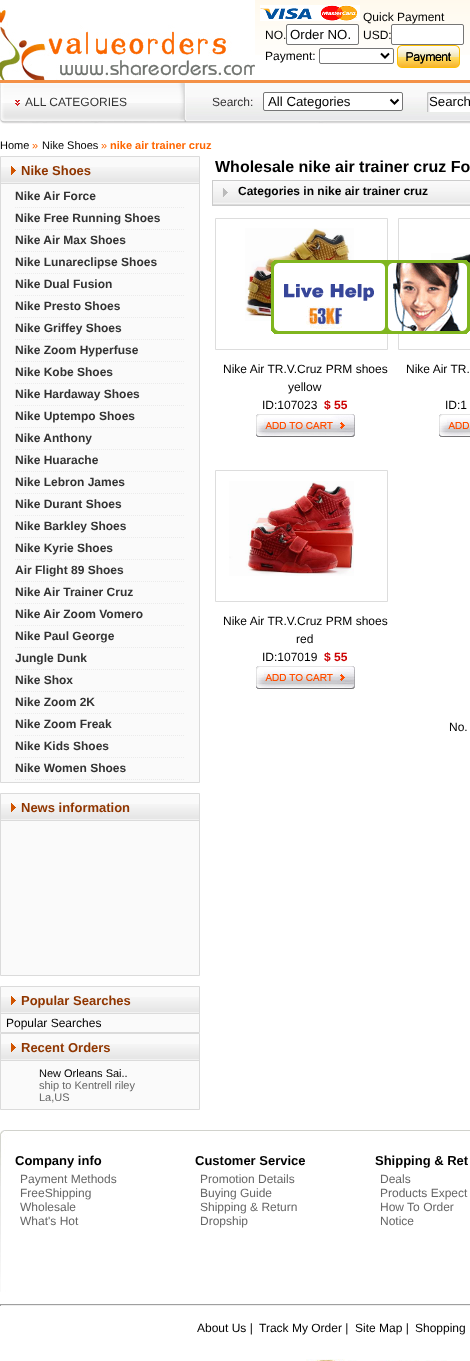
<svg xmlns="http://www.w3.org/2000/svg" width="470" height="1361">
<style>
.a{font:12px Liberation Sans;fill:#000}
.b{font:13.25px Liberation Sans;fill:#000}
.c{font:12px Liberation Sans;fill:#333}
.d{font:11px Liberation Sans;fill:#000}
.e{font:11px Liberation Sans;fill:#f60}
.f{font:bold 11px Liberation Sans;fill:#f60}
.g{font:bold 13px Liberation Sans;fill:#903600}
.h{font:bold 12px Liberation Sans;fill:#333}
.i{font:11px Liberation Sans;fill:#666}
.j{font:bold 16px Liberation Sans;fill:#000}
.k{font:bold 12px Liberation Sans;fill:#000}
.l{font:bold 12px Liberation Sans;fill:#c00}
.m{font:bold 13px Liberation Sans;fill:#000}
.n{font:12px Liberation Sans;fill:#666}
</style>
<rect width="100%" height="100%" fill="#fff"/>
<image href="1.png" x="255" y="0" width="215" height="55"/>
<image href="2.png" x="0" y="0" width="255" height="80"/>
<image href="3.png" x="260" y="5" width="100" height="16"/>
<rect fill="#fff" stroke="#767676" x="286.5" y="24.5" width="72" height="20" rx="1.5"/>
<rect fill="#fff" stroke="#767676" x="391.5" y="24.5" width="72" height="20" rx="1.5"/>
<rect fill="#fff" stroke="#767676" x="319.5" y="48.5" width="74" height="15" rx="1.5"/>
<path fill="none" stroke="#000" stroke-width="2" d="M381 53.5l4 4l4-4"/>
<image href="4.png" x="397" y="45" width="63" height="23"/>
<image href="5.png" x="0" y="80" width="470" height="44"/>
<image href="6.png" x="1" y="83" width="186" height="39"/>
<image href="7.png" x="15" y="100" width="5" height="6"/>
<rect fill="#fff" stroke="#767676" x="263.5" y="92.5" width="139" height="18" rx="1.5"/>
<path fill="none" stroke="#000" stroke-width="2" d="M390.5 99.5l4 4l4-4"/>
<image href="8.png" x="427" y="92" width="43" height="20"/>
<path fill="#fafafa" stroke="#dbdbdb" d="M0.5 156.5h199v626H0.5z"/>
<image href="9.png" x="1" y="167" width="198" height="17"/>
<image href="10.png" x="11" y="166" width="5" height="9"/>
<path fill="none" stroke="#ebebeb" stroke-dasharray="1 1" d="M15 207.5h170"/>
<path fill="none" stroke="#ebebeb" stroke-dasharray="1 1" d="M15 229.5h170"/>
<path fill="none" stroke="#ebebeb" stroke-dasharray="1 1" d="M15 251.5h170"/>
<path fill="none" stroke="#ebebeb" stroke-dasharray="1 1" d="M15 273.5h170"/>
<path fill="none" stroke="#ebebeb" stroke-dasharray="1 1" d="M15 295.5h170"/>
<path fill="none" stroke="#ebebeb" stroke-dasharray="1 1" d="M15 317.5h170"/>
<path fill="none" stroke="#ebebeb" stroke-dasharray="1 1" d="M15 339.5h170"/>
<path fill="none" stroke="#ebebeb" stroke-dasharray="1 1" d="M15 361.5h170"/>
<path fill="none" stroke="#ebebeb" stroke-dasharray="1 1" d="M15 383.5h170"/>
<path fill="none" stroke="#ebebeb" stroke-dasharray="1 1" d="M15 405.5h170"/>
<path fill="none" stroke="#ebebeb" stroke-dasharray="1 1" d="M15 427.5h170"/>
<path fill="none" stroke="#ebebeb" stroke-dasharray="1 1" d="M15 449.5h170"/>
<path fill="none" stroke="#ebebeb" stroke-dasharray="1 1" d="M15 471.5h170"/>
<path fill="none" stroke="#ebebeb" stroke-dasharray="1 1" d="M15 493.5h170"/>
<path fill="none" stroke="#ebebeb" stroke-dasharray="1 1" d="M15 515.5h170"/>
<path fill="none" stroke="#ebebeb" stroke-dasharray="1 1" d="M15 537.5h170"/>
<path fill="none" stroke="#ebebeb" stroke-dasharray="1 1" d="M15 559.5h170"/>
<path fill="none" stroke="#ebebeb" stroke-dasharray="1 1" d="M15 581.5h170"/>
<path fill="none" stroke="#ebebeb" stroke-dasharray="1 1" d="M15 603.5h170"/>
<path fill="none" stroke="#ebebeb" stroke-dasharray="1 1" d="M15 625.5h170"/>
<path fill="none" stroke="#ebebeb" stroke-dasharray="1 1" d="M15 647.5h170"/>
<path fill="none" stroke="#ebebeb" stroke-dasharray="1 1" d="M15 669.5h170"/>
<path fill="none" stroke="#ebebeb" stroke-dasharray="1 1" d="M15 691.5h170"/>
<path fill="none" stroke="#ebebeb" stroke-dasharray="1 1" d="M15 713.5h170"/>
<path fill="none" stroke="#ebebeb" stroke-dasharray="1 1" d="M15 735.5h170"/>
<path fill="none" stroke="#ebebeb" stroke-dasharray="1 1" d="M15 757.5h170"/>
<path fill="none" stroke="#ebebeb" stroke-dasharray="1 1" d="M15 779.5h170"/>
<path fill="#fafafa" stroke="#dbdbdb" d="M0.5 793.5h199v182H0.5z"/>
<image href="9.png" x="1" y="804" width="198" height="17"/>
<image href="10.png" x="11" y="803" width="5" height="9"/>
<path fill="#fafafa" stroke="#dbdbdb" d="M0.5 986.5h199v46H0.5z"/>
<image href="9.png" x="1" y="997" width="198" height="17"/>
<image href="10.png" x="11" y="996" width="5" height="9"/>
<path fill="#fafafa" stroke="#dbdbdb" d="M0.5 1033.5h199v76H0.5z"/>
<image href="9.png" x="1" y="1044" width="198" height="17"/>
<image href="10.png" x="11" y="1043" width="5" height="9"/>
<image href="11.png" x="212" y="180" width="258" height="26"/>
<path fill="none" stroke="#ddd" d="M215.5 218.5h172v131H215.5z"/>
<image href="12.png" x="245" y="228" width="109" height="93"/>
<image href="13.png" x="256" y="414" width="99" height="23"/>
<path fill="none" stroke="#ddd" d="M398.5 218.5h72v131H398.5z"/>
<image href="14.png" x="431" y="253" width="39" height="10"/>
<image href="15.png" x="439" y="414" width="31" height="23"/>
<path fill="none" stroke="#ddd" d="M215.5 470.5h172v131H215.5z"/>
<image href="16.png" x="229" y="481" width="125" height="95"/>
<image href="13.png" x="256" y="666" width="99" height="23"/>
<image href="17.png" x="271" y="260" width="199" height="74"/>
<image href="18.png" x="0" y="1130" width="470" height="162"/>
<path fill="#9f9f9f" d="M0 1304h470v1H0z"/>
<path fill="#eee" d="M0 1305h470v1H0z"/>
<path fill="#9f9f9f" d="M0 1304h1v2H0z"/>
<image href="19.png" x="306" y="1359" width="39" height="2"/>
<image href="20.png" x="348" y="1360" width="99" height="1"/>
<text class="a" x="363" y="21">Quick Payment</text>
<text class="a" x="265" y="39">NO.</text>
<text class="b" x="290" y="39">Order NO.</text>
<text class="a" x="363" y="39">USD:</text>
<text class="a" x="265" y="60">Payment:</text>
<text class="c" x="25" y="106">ALL CATEGORIES</text>
<text class="c" x="212" y="106">Search:</text>
<text class="b" x="268" y="106">All Categories</text>
<text class="b" x="429" y="106">Search</text>
<text class="d" x="0" y="149">Home</text>
<text class="e" x="32" y="149">»</text>
<text class="d" x="42" y="149">Nike Shoes</text>
<text class="e" x="101" y="149">»</text>
<text class="f" x="110" y="149">nike air trainer cruz</text>
<text class="g" x="21" y="175">Nike Shoes</text>
<text class="h" x="15" y="200">Nike Air Force</text>
<text class="h" x="15" y="222">Nike Free Running Shoes</text>
<text class="h" x="15" y="244">Nike Air Max Shoes</text>
<text class="h" x="15" y="266">Nike Lunareclipse Shoes</text>
<text class="h" x="15" y="288">Nike Dual Fusion</text>
<text class="h" x="15" y="310">Nike Presto Shoes</text>
<text class="h" x="15" y="332">Nike Griffey Shoes</text>
<text class="h" x="15" y="354">Nike Zoom Hyperfuse</text>
<text class="h" x="15" y="376">Nike Kobe Shoes</text>
<text class="h" x="15" y="398">Nike Hardaway Shoes</text>
<text class="h" x="15" y="420">Nike Uptempo Shoes</text>
<text class="h" x="15" y="442">Nike Anthony</text>
<text class="h" x="15" y="464">Nike Huarache</text>
<text class="h" x="15" y="486">Nike Lebron James</text>
<text class="h" x="15" y="508">Nike Durant Shoes</text>
<text class="h" x="15" y="530">Nike Barkley Shoes</text>
<text class="h" x="15" y="552">Nike Kyrie Shoes</text>
<text class="h" x="15" y="574">Air Flight 89 Shoes</text>
<text class="h" x="15" y="596">Nike Air Trainer Cruz</text>
<text class="h" x="15" y="618">Nike Air Zoom Vomero</text>
<text class="h" x="15" y="640">Nike Paul George</text>
<text class="h" x="15" y="662">Jungle Dunk</text>
<text class="h" x="15" y="684">Nike Shox</text>
<text class="h" x="15" y="706">Nike Zoom 2K</text>
<text class="h" x="15" y="728">Nike Zoom Freak</text>
<text class="h" x="15" y="750">Nike Kids Shoes</text>
<text class="h" x="15" y="772">Nike Women Shoes</text>
<text class="g" x="21" y="812">News information</text>
<text class="g" x="21" y="1005">Popular Searches</text>
<text class="a" x="6" y="1027">Popular Searches</text>
<text class="g" x="21" y="1052">Recent Orders</text>
<text class="d" x="39" y="1077">New Orleans Sai..</text>
<text class="i" x="39" y="1089">ship to Kentrell riley</text>
<text class="i" x="39" y="1101">La,US</text>
<text class="j" x="215" y="172">Wholesale nike air trainer cruz Fo</text>
<text class="k" x="238" y="195">Categories in nike air trainer cruz</text>
<text class="a" x="223" y="373">Nike Air TR.V.Cruz PRM shoes</text>
<text class="a" x="288" y="391">yellow</text>
<text class="a" x="262" y="409">ID:107023</text>
<text class="l" x="324" y="409">$ 55</text>
<text class="a" x="406" y="373">Nike Air TR.</text>
<text class="a" x="445" y="409">ID:1</text>
<text class="a" x="223" y="625">Nike Air TR.V.Cruz PRM shoes</text>
<text class="a" x="296" y="643">red</text>
<text class="a" x="262" y="661">ID:107019</text>
<text class="l" x="324" y="661">$ 55</text>
<text class="a" x="449" y="731">No.</text>
<text class="m" x="15" y="1165">Company info</text>
<text class="n" x="20" y="1183">Payment Methods</text>
<text class="n" x="20" y="1197">FreeShipping</text>
<text class="n" x="20" y="1211">Wholesale</text>
<text class="n" x="20" y="1225">What's Hot</text>
<text class="m" x="195" y="1165">Customer Service</text>
<text class="n" x="200" y="1183">Promotion Details</text>
<text class="n" x="200" y="1197">Buying Guide</text>
<text class="n" x="200" y="1211">Shipping &amp; Return</text>
<text class="n" x="200" y="1225">Dropship</text>
<text class="m" x="375" y="1165">Shipping &amp; Ret</text>
<text class="n" x="380" y="1183">Deals</text>
<text class="n" x="380" y="1197">Products Expect</text>
<text class="n" x="380" y="1211">How To Order</text>
<text class="n" x="380" y="1225">Notice</text>
<text class="a" x="197" y="1332">About Us |</text>
<text class="a" x="259" y="1332">Track My Order |</text>
<text class="a" x="355" y="1332">Site Map |</text>
<text class="a" x="415" y="1332">Shopping</text>
</svg>
